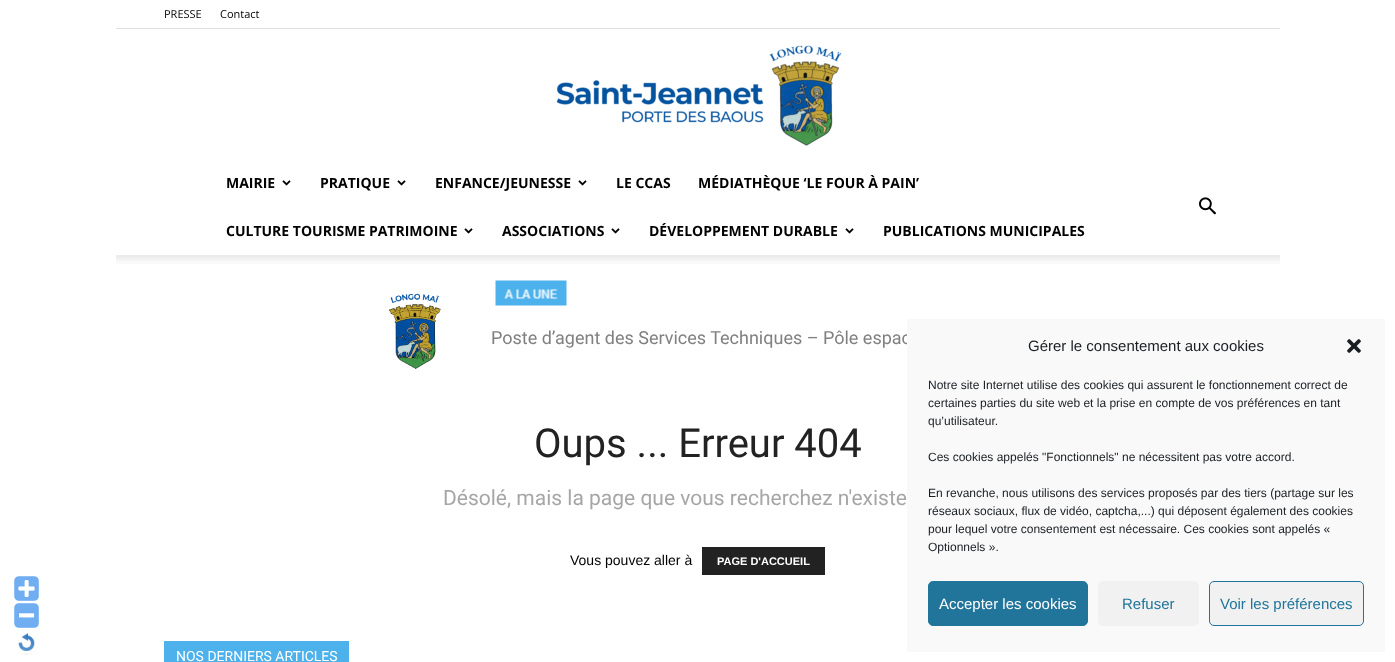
<svg xmlns="http://www.w3.org/2000/svg" width="1395" height="662">
<style>
.a{font:11px Open Sans;fill:#000}
.b{font:bold 14px Open Sans;fill:#000}
.c{font:18px Roboto;fill:#808080}
.d{font:40px Roboto;fill:#222}
.e{font:21px Roboto;fill:#a6a6a6}
.f{font:14px Liberation Sans;fill:#000}
.g{font:bold 11px Liberation Sans;fill:#fff}
.h{font:14px Roboto;fill:#fff}
.i{font:15px Liberation Sans;fill:#191e23}
.j{font:12px Liberation Sans;fill:#191e23}
.k{font:15px Liberation Sans;fill:#fff}
.l{font:15px Liberation Sans;fill:#21759b}
</style>
<rect width="100%" height="100%" fill="#fff"/>
<image href="1.png" x="14" y="576" width="25" height="25"/>
<image href="2.png" x="14" y="603" width="25" height="25"/>
<image href="3.png" x="18" y="633" width="17" height="22"/>
<path fill="#e0e0e0" d="M116 28h1164v1H116z"/>
<image href="4.png" x="556" y="45" width="286" height="101"/>
<image href="5.png" x="282" y="180" width="9" height="6"/>
<image href="5.png" x="397" y="180" width="9" height="6"/>
<image href="5.png" x="578" y="180" width="9" height="6"/>
<image href="5.png" x="464" y="228" width="9" height="6"/>
<image href="5.png" x="611" y="228" width="9" height="6"/>
<image href="5.png" x="845" y="228" width="9" height="6"/>
<image href="6.png" x="1199" y="197" width="17" height="18"/>
<image href="7.png" x="116" y="255" width="1164" height="9"/>
<image href="8.png" x="389" y="293" width="52" height="76"/>
<image href="9.png" x="495" y="280" width="72" height="26"/>
<path fill="#222" d="M702 547h123v28H702z"/>
<path fill="#4db2ec" d="M164 641h185v21H164z"/>
<text class="a" x="164" y="18">PRESSE</text>
<text class="a" x="220" y="18">Contact</text>
<text class="b" x="226" y="188">MAIRIE</text>
<text class="b" x="320" y="188">PRATIQUE</text>
<text class="b" x="435" y="188">ENFANCE/JEUNESSE</text>
<text class="b" x="616" y="188">LE CCAS</text>
<text class="b" x="698" y="188">MÉDIATHÈQUE ‘LE FOUR À PAIN’</text>
<text class="b" x="226" y="236">CULTURE TOURISME PATRIMOINE</text>
<text class="b" x="502" y="236">ASSOCIATIONS</text>
<text class="b" x="649" y="236">DÉVELOPPEMENT DURABLE</text>
<text class="b" x="883" y="236">PUBLICATIONS MUNICIPALES</text>
<text class="c" x="491" y="344">Poste d’agent des Services Techniques – Pôle espac</text>
<text class="d" x="534" y="457">Oups ... Erreur 404</text>
<text class="e" x="443" y="505">Désolé, mais la page que vous recherchez n'existe</text>
<text class="f" x="570" y="565">Vous pouvez aller à</text>
<text class="g" x="717" y="565">PAGE D'ACCUEIL</text>
<text class="h" x="176" y="661">NOS DERNIERS ARTICLES</text>
<path fill="#f9f9f9" d="M907 319h478v333H907z"/>
<text class="i" x="1028" y="351">Gérer le consentement aux cookies</text>
<image href="10.png" x="1347" y="339" width="14" height="14"/>
<text class="j" x="928" y="389">Notre site Internet utilise des cookies qui assurent le fonctionnement correct de</text>
<text class="j" x="928" y="407">certaines parties du site web et la prise en compte de vos préférences en tant</text>
<text class="j" x="928" y="425">qu’utilisateur.</text>
<text class="j" x="928" y="461">Ces cookies appelés "Fonctionnels" ne nécessitent pas votre accord.</text>
<text class="j" x="928" y="497">En revanche, nous utilisons des services proposés par des tiers (partage sur les</text>
<text class="j" x="928" y="515">réseaux sociaux, flux de vidéo, captcha,...) qui déposent également des cookies</text>
<text class="j" x="928" y="533">pour lequel votre consentement est nécessaire. Ces cookies sont appelés «</text>
<text class="j" x="928" y="551">Optionnels ».</text>
<rect fill="#21759b" stroke="#21759b" x="928.5" y="581.5" width="159" height="44" rx="4.5"/>
<text class="k" x="939" y="609">Accepter les cookies</text>
<rect fill="#f1f1f1" x="1098" y="581" width="101" height="45" rx="5"/>
<text class="l" x="1122" y="609">Refuser</text>
<rect fill="#f1f1f1" stroke="#21759b" x="1209.5" y="581.5" width="154" height="44" rx="4.5"/>
<text class="l" x="1220" y="609">Voir les préférences</text>
</svg>
